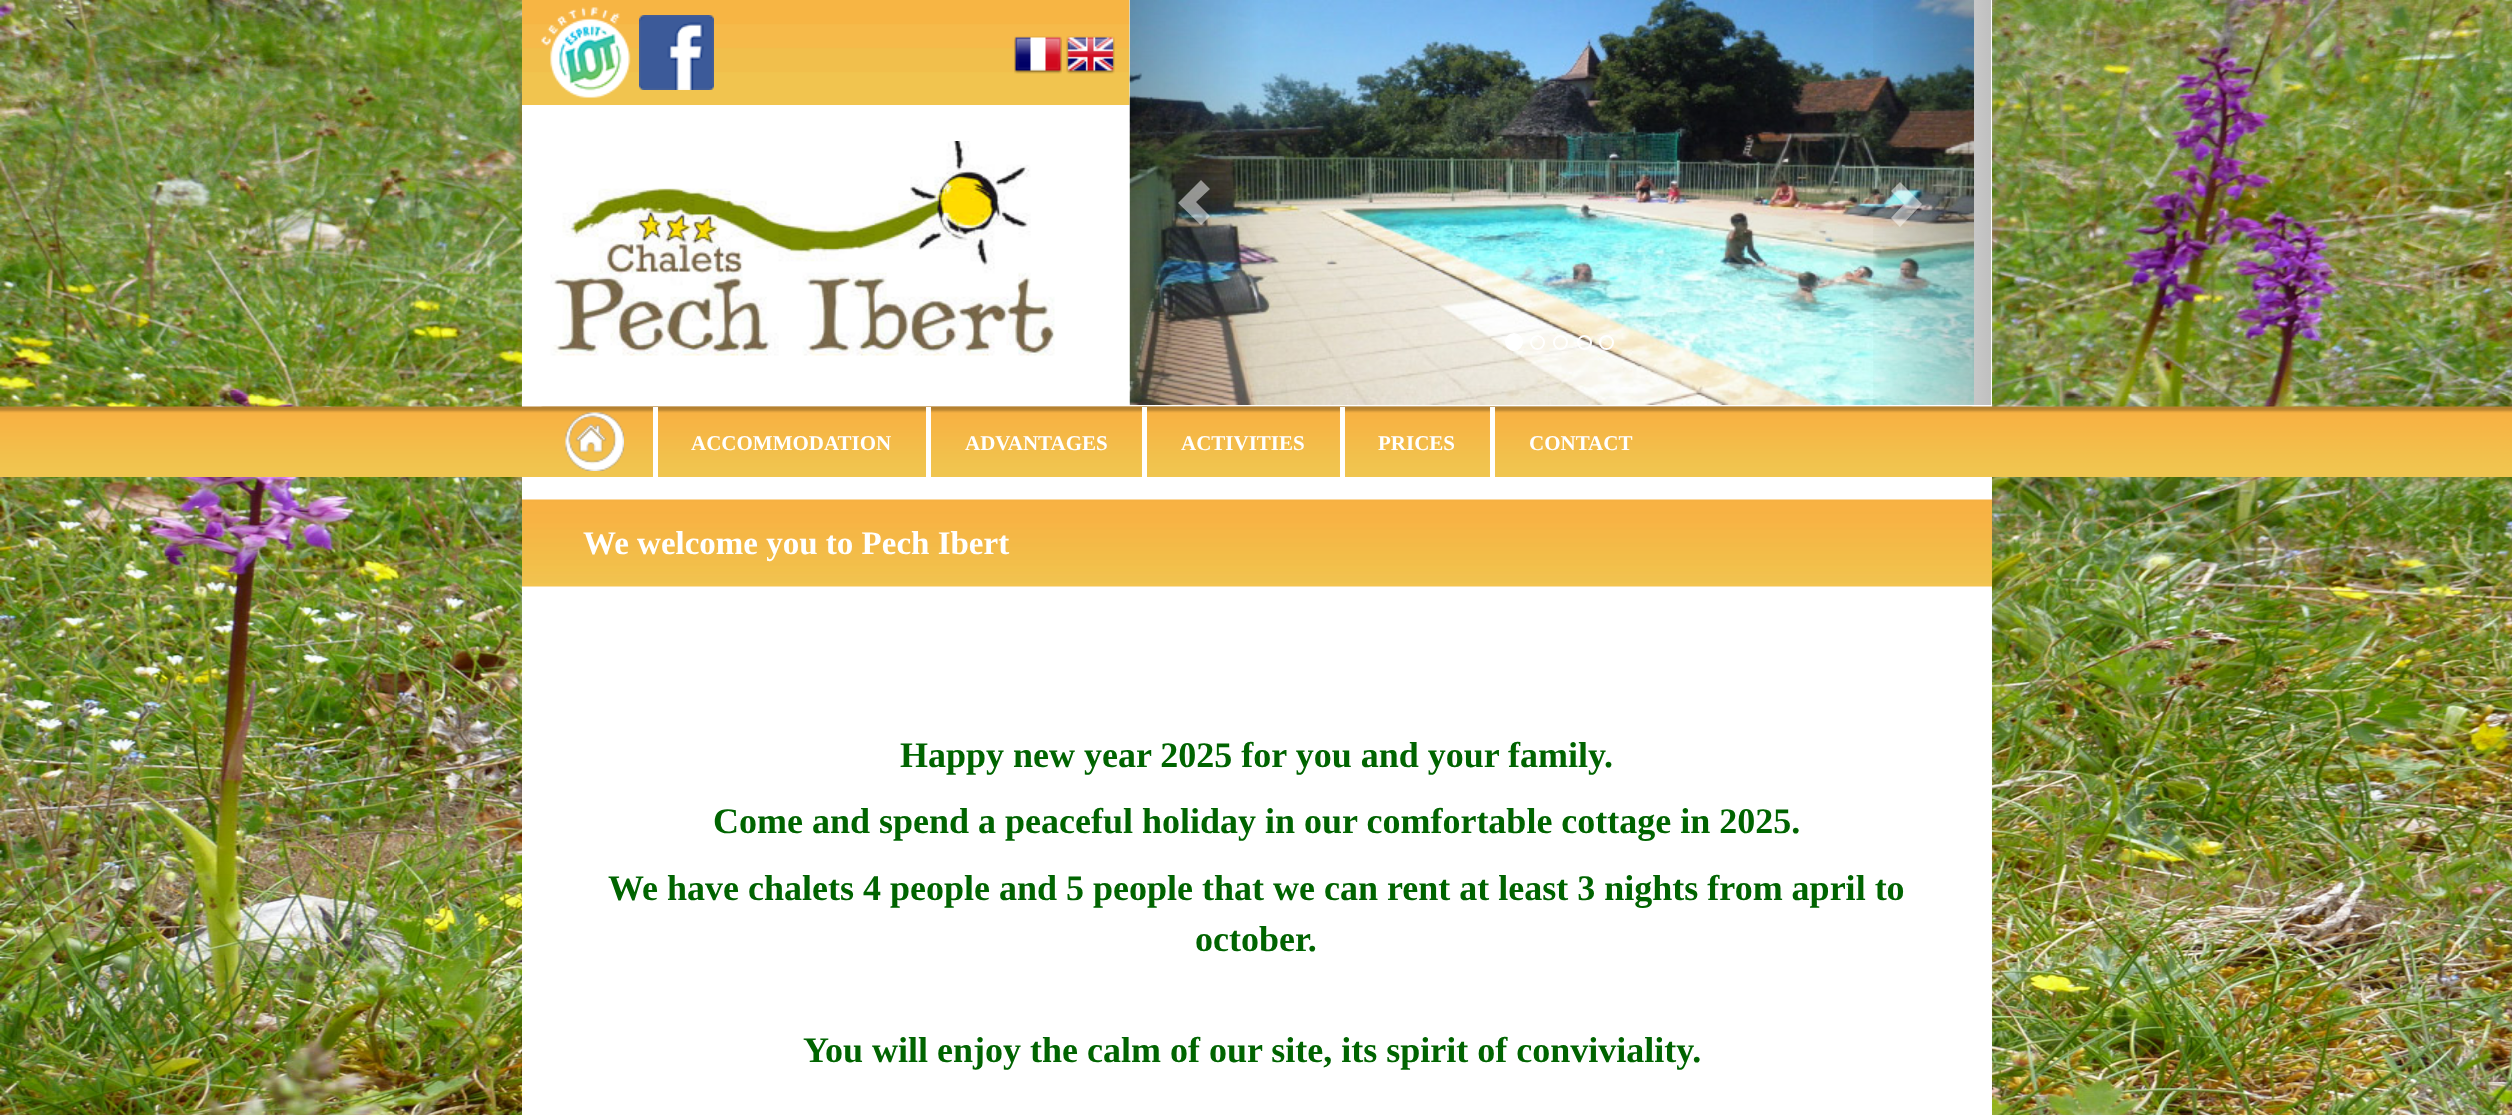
<svg xmlns="http://www.w3.org/2000/svg" width="2512" height="1115">
<style>
.a{font:bold 21px Liberation Serif;fill:#fff}
.b{font:bold 33px Liberation Serif;fill:#fff}
.c{font:bold 36px Liberation Serif;fill:#006400}
</style>
<defs>
<linearGradient id="g1" gradientUnits="userSpaceOnUse" x1="1862" y1="203" x2="1991" y2="203"><stop offset="0" stop-color="#000" stop-opacity="0"/><stop offset="1" stop-color="#000" stop-opacity="0.25"/></linearGradient>
</defs>
<rect width="100%" height="100%" fill="#fff"/>
<image href="1.png" x="0" y="0" width="2512" height="1115"/>
<path fill="#fff" d="M522 0h1470v407H522z"/>
<image href="2.png" x="522" y="0" width="608" height="105"/>
<image href="3.png" x="541" y="7" width="90" height="91"/>
<image href="4.png" x="639" y="15" width="75" height="75"/>
<image href="5.png" x="1014" y="36" width="48" height="38"/>
<image href="6.png" x="1066" y="36" width="49" height="38"/>
<image href="7.png" x="550" y="141" width="505" height="215"/>
<image href="8.png" x="1129" y="0" width="845" height="405"/>
<path fill="#ffffff80" d="M1178 203l23 22l9-9l-14-14l14-13l-9-9z"/>
<path fill="url(#g1)" d="M1873 0h118v405H1873z"/>
<path fill="#ffffff80" d="M1891 218l13-14l-13-13l9-9l22 22l-22 23z"/>
<circle fill="#fff" stroke="#fff" stroke-width="2" cx="1514" cy="342" r="8"/>
<circle fill="none" stroke="#fff" stroke-width="2" cx="1537.5" cy="342.5" r="6.5"/>
<circle fill="none" stroke="#fff" stroke-width="2" cx="1560.5" cy="342.5" r="6.5"/>
<circle fill="none" stroke="#fff" stroke-width="2" cx="1584.5" cy="342.5" r="6.5"/>
<circle fill="none" stroke="#fff" stroke-width="2" cx="1606.5" cy="342.5" r="6.5"/>
<image href="9.png" x="0" y="406" width="2512" height="71"/>
<image href="10.png" x="541" y="406" width="1432" height="1"/>
<image href="11.png" x="565" y="412" width="59" height="59"/>
<path fill="#fff" d="M653 407h5v70H653z"/>
<path fill="#fff" d="M926 407h5v70H926z"/>
<path fill="#fff" d="M1142 407h5v70H1142z"/>
<path fill="#fff" d="M1340 407h5v70H1340z"/>
<path fill="#fff" d="M1490 407h5v70H1490z"/>
<path fill="#fff" d="M522 477h1470v638H522z"/>
<image href="12.png" x="522" y="499" width="1470" height="88"/>
<text class="a" x="691" y="450">ACCOMMODATION</text>
<text class="a" x="965" y="450">ADVANTAGES</text>
<text class="a" x="1181" y="450">ACTIVITIES</text>
<text class="a" x="1378" y="450">PRICES</text>
<text class="a" x="1529" y="450">CONTACT</text>
<text class="b" x="583" y="554">We welcome you to Pech Ibert</text>
<text class="c" x="900" y="767">Happy new year 2025 for you and your family.</text>
<text class="c" x="713" y="833">Come and spend a peaceful holiday in our comfortable cottage in 2025.</text>
<text class="c" x="608" y="900">We have chalets 4 people and 5 people that we can rent at least 3 nights from april to</text>
<text class="c" x="1195" y="951">october.</text>
<text class="c" x="803" y="1062">You will enjoy the calm of our site, its spirit of conviviality.</text>
</svg>
